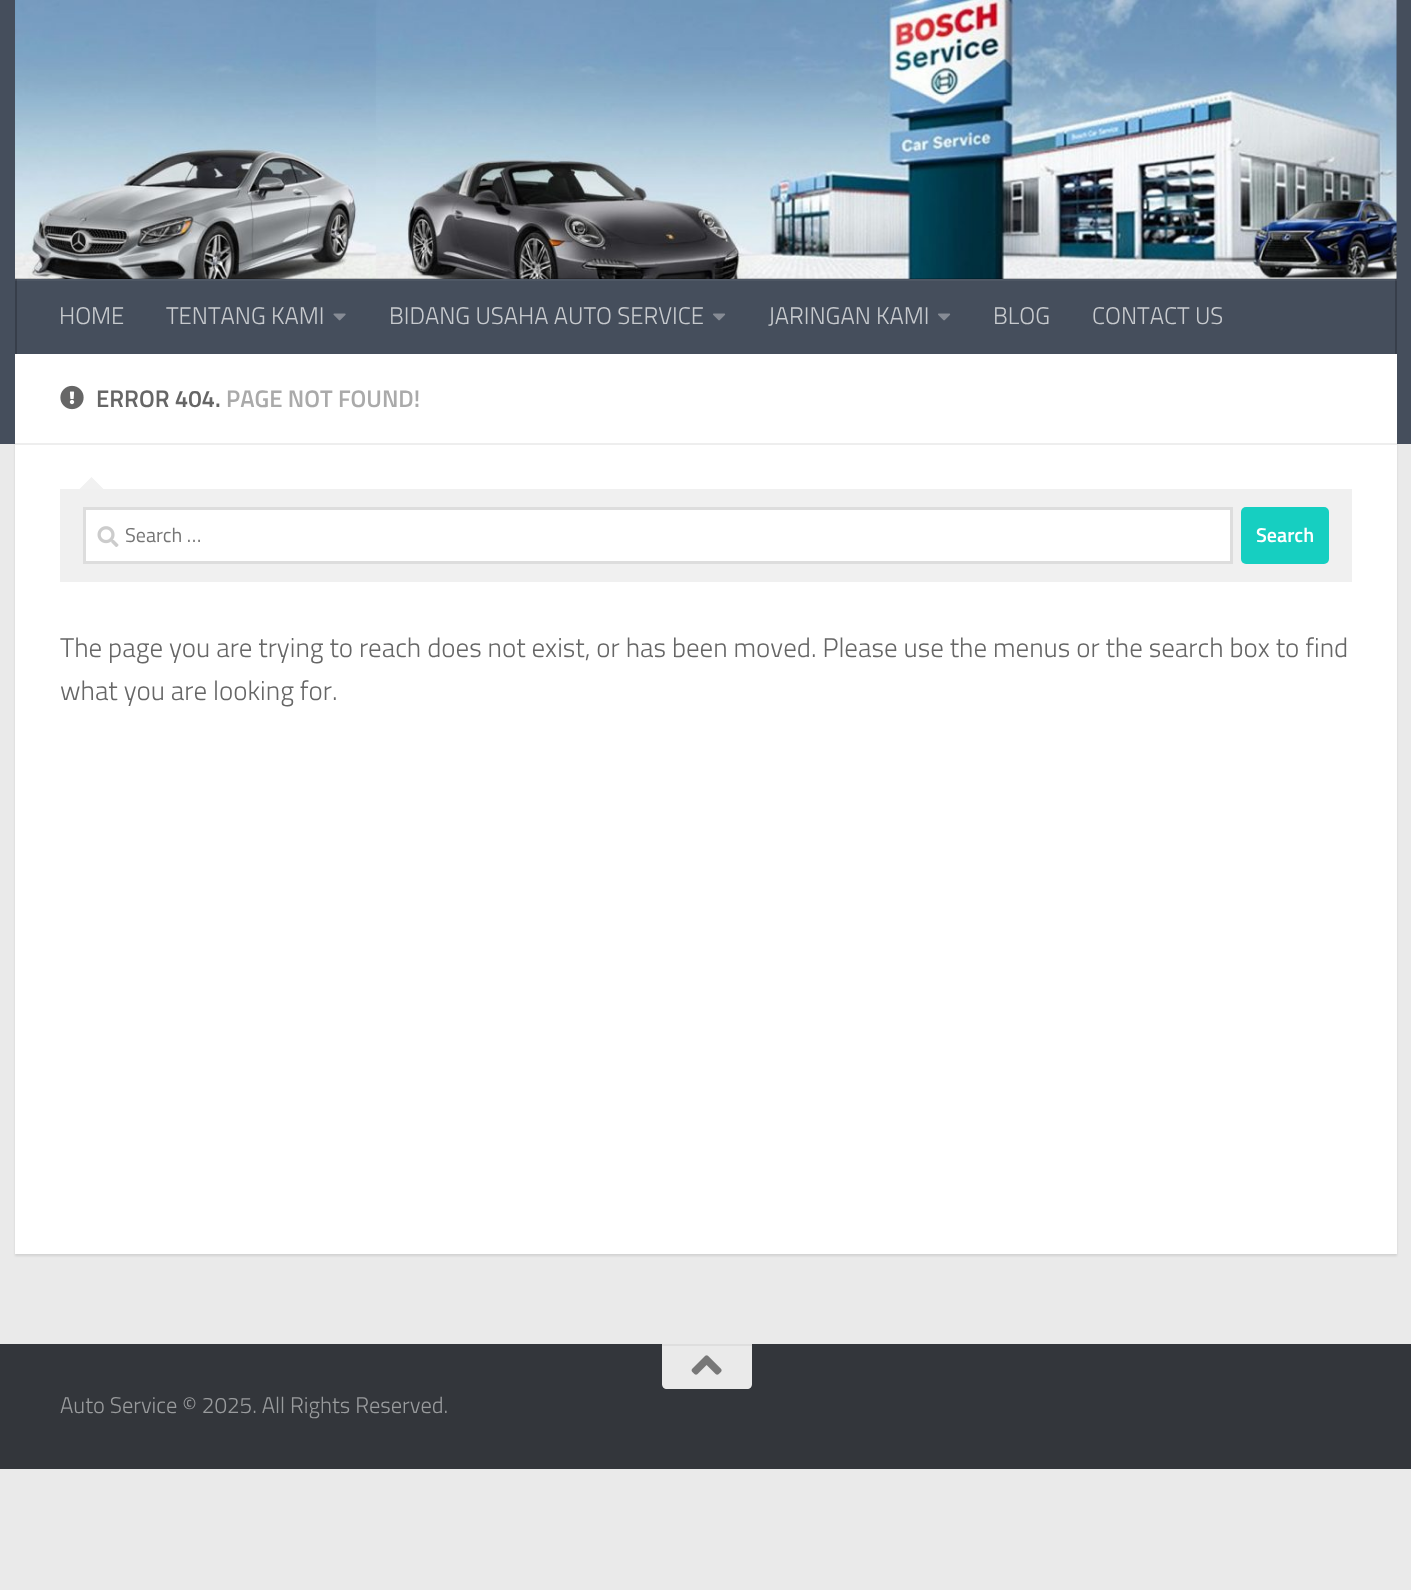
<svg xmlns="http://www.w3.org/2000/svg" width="1411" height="1590">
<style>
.a{font:300 24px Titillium;fill:#c7cace}
.b{font:600 24px Titillium;fill:#666}
.c{font:600 24px Titillium;fill:#aaa}
.d{font:20px Titillium;fill:#757575}
.e{font:600 20px Titillium;fill:#fff}
.f{font:300 27px Titillium;fill:#666}
.g{font:300 22.5px Titillium;fill:#999b9d}
</style>
<rect width="100%" height="100%" fill="#eaeaea"/>
<path fill="#0000001a" filter="blur(1px)" d="M15 356h1382v900H15z"/>
<path fill="#454e5c" d="M0 0h1411v444H0z"/>
<image href="1.png" x="15" y="0" width="1382" height="279"/>
<path fill="#00000033" d="M15 278v1h1381v74h1v-75z"/>
<path fill="#373e4a" d="M1395 279h2v75H1395z"/>
<path fill="#373e4a" d="M15 279h2v75H15z"/>
<path fill="#ffffff0d" d="M15 279h1382v2H15z"/>
<image href="2.png" x="333" y="313" width="13" height="8"/>
<image href="3.png" x="713" y="313" width="13" height="8"/>
<image href="3.png" x="938" y="313" width="13" height="8"/>
<path fill="#fff" d="M15 354h1382v900H15z"/>
<path fill="#eee" d="M15 443h1382v2H15z"/>
<image href="4.png" x="60" y="385" width="24" height="25"/>
<path fill="#f0f0f0" d="M60 489h1292v93H60z"/>
<path fill="#f1f1f1" d="M103.5 489h-24l12-12z"/>
<path fill="#fff" stroke="#ddd" stroke-width="3" d="M84.5 508.5h1147v54H84.5z"/>
<image href="5.png" x="97" y="526" width="22" height="21"/>
<rect fill="#16cfc1" x="1241" y="507" width="88" height="57" rx="5"/>
<path fill="#33363b" d="M0 1344h1411v125H0z"/>
<path fill="#eaeaea" d="M662 1344h90v40c0 3-2 5-5 5h-80c-3 0-5-2-5-5z"/>
<path fill="#dedede" d="M662 1344h90v2H662z"/>
<image href="6.png" x="691" y="1355" width="31" height="20"/>
<text class="a" x="59" y="324">HOME</text>
<text class="a" x="166" y="324">TENTANG KAMI</text>
<text class="a" x="389" y="324">BIDANG USAHA AUTO SERVICE</text>
<text class="a" x="768" y="324">JARINGAN KAMI</text>
<text class="a" x="993" y="324">BLOG</text>
<text class="a" x="1092" y="324">CONTACT US</text>
<text class="b" x="96" y="407">ERROR 404.</text>
<text class="c" x="226" y="407">PAGE NOT FOUND!</text>
<text class="d" x="125" y="542">Search …</text>
<text class="e" x="1256" y="542">Search</text>
<text class="f" x="60" y="657">The page you are trying to reach does not exist, or has been moved. Please use the menus or the search box to find</text>
<text class="f" x="60" y="700">what you are looking for.</text>
<text class="g" x="60" y="1413">Auto Service © 2025. All Rights Reserved.</text>
</svg>
